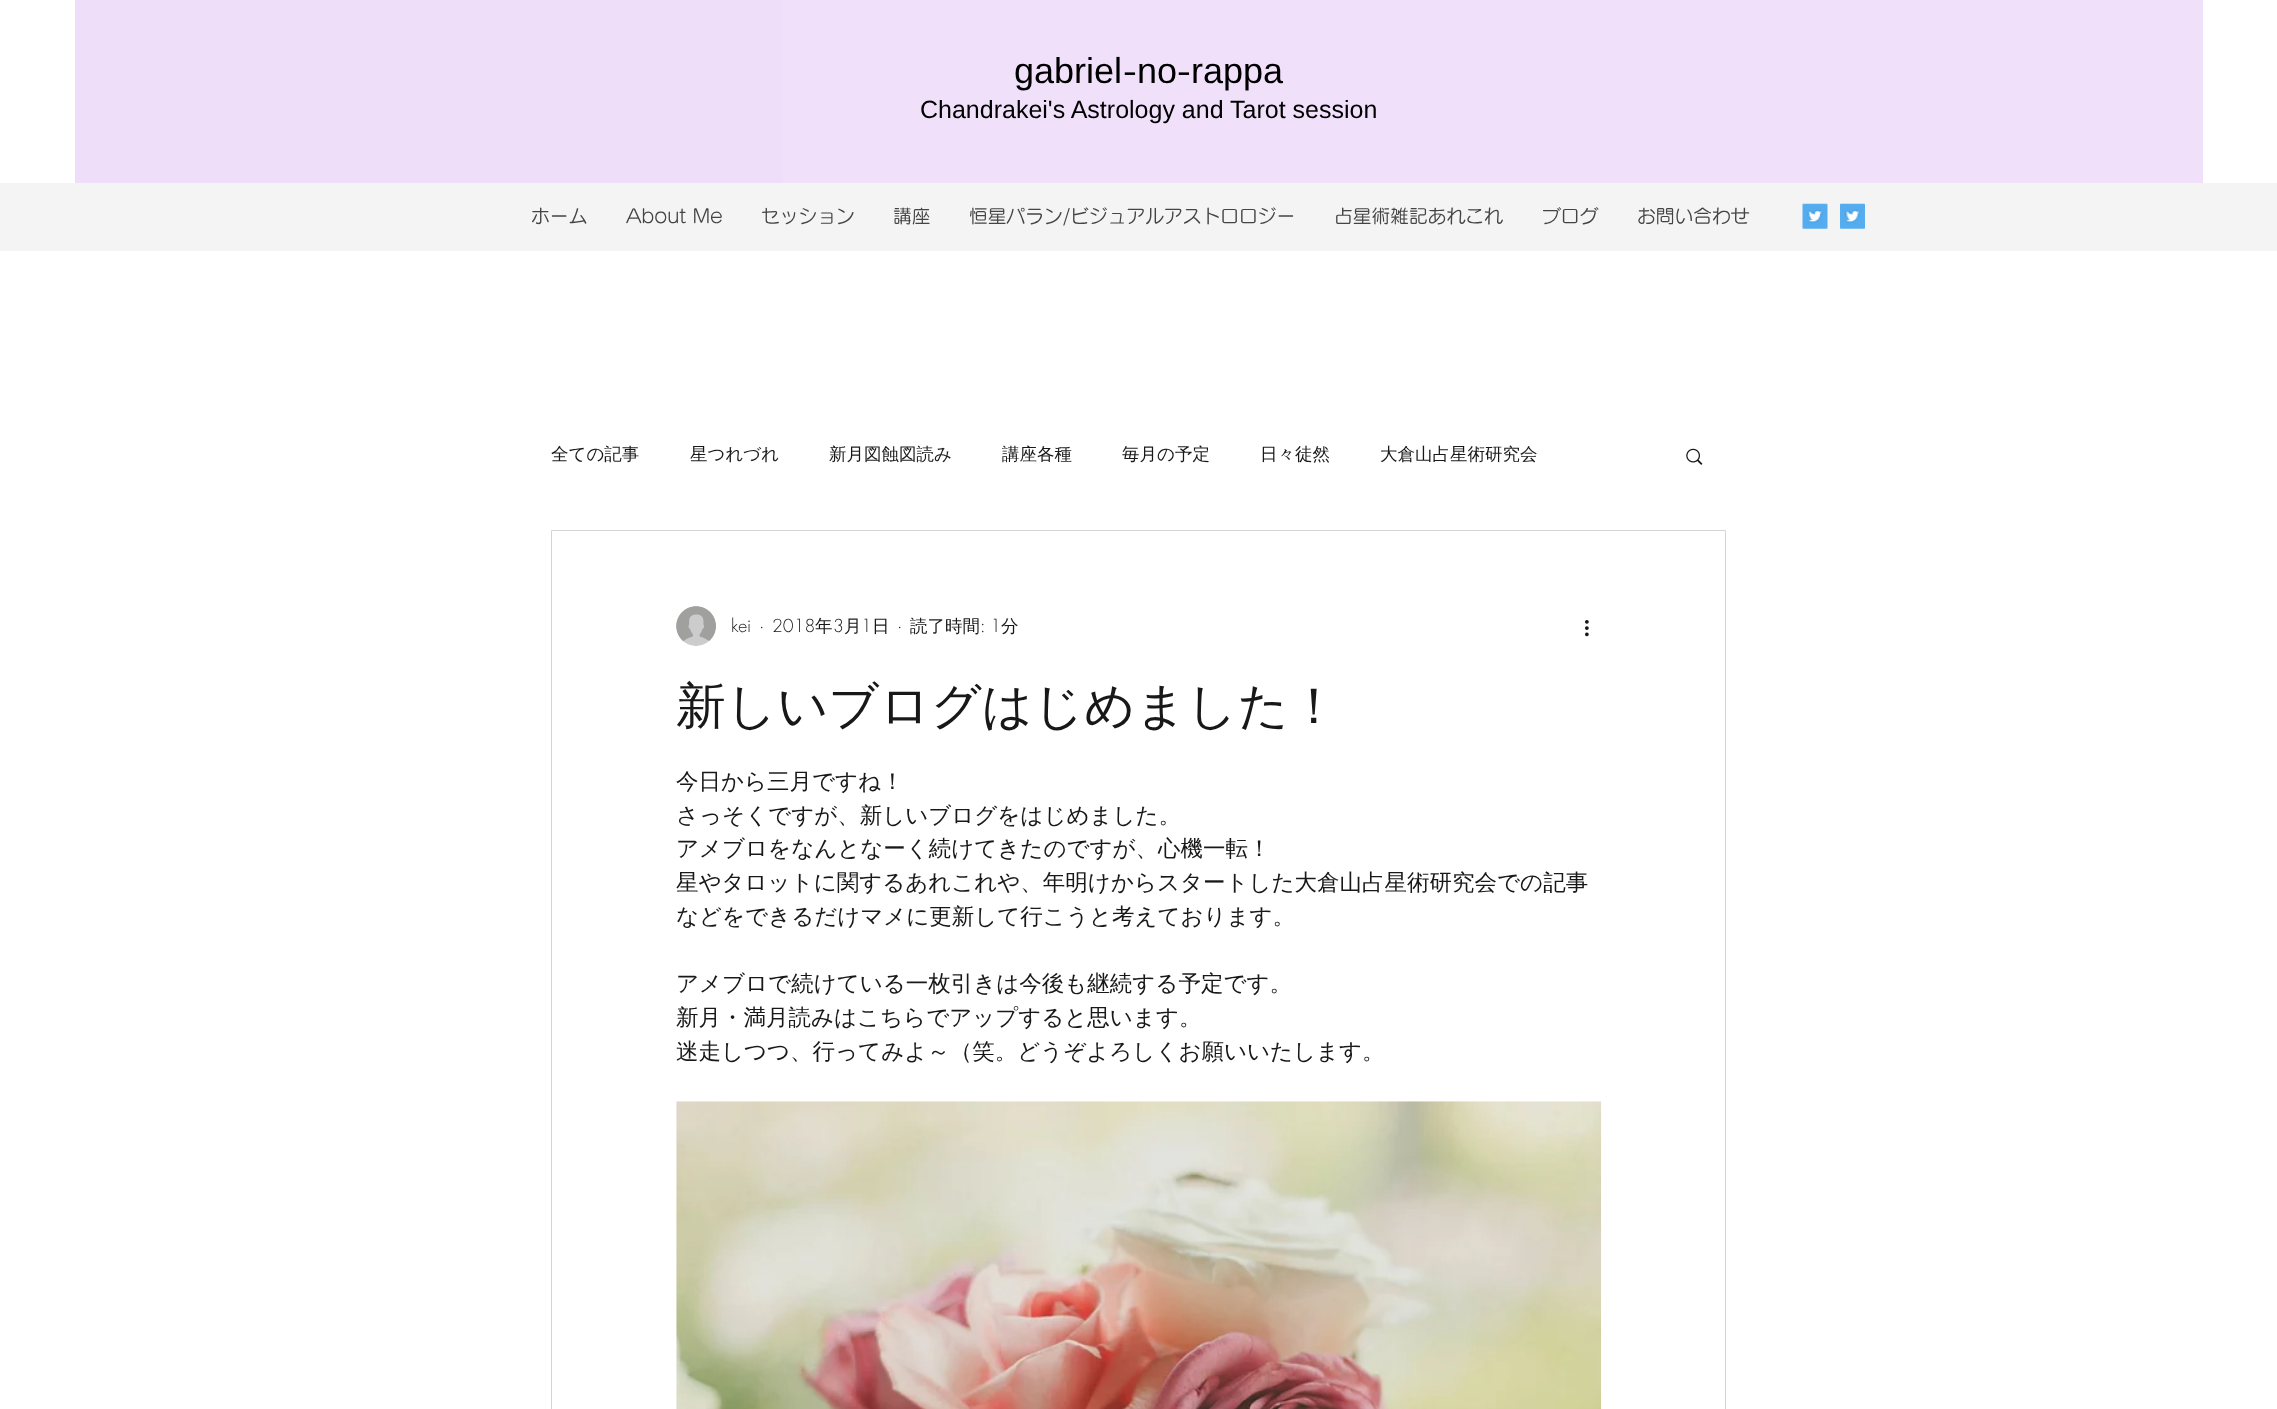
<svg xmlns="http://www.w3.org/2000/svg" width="2277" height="1409">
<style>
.a{font:36px Liberation Sans;fill:#000}
.b{font:36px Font;fill:#000}
.c{font:25px Liberation Sans;fill:#000}
.d{font:500 18.75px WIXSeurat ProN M;fill:#444}
.e{font:500 17.5px WenQuanYi Zen Hei;fill:#181818}
.f{font:300 17.5px futura;fill:#181818}
.g{font:500 50px WenQuanYi Zen Hei;fill:#181818}
.h{font:500 22.5px WenQuanYi Zen Hei;fill:#181818}
</style>
<rect width="100%" height="100%" fill="#fff"/>
<path fill="#f0e0fa" d="M783 0h1420v183H783z"/>
<path fill="#efdefa" d="M75 0h708v183H75z"/>
<path fill="#f4f4f4" d="M0 183h2277v68H0z"/>
<image href="1.png" x="1802" y="203" width="26" height="26"/>
<image href="2.png" x="1840" y="203" width="25" height="26"/>
<image href="3.png" x="1686" y="448" width="17" height="17"/>
<path fill="none" stroke="#d4d4d4" d="M551.5 530.5h1174v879H551.5z"/>
<image href="4.png" x="676" y="606" width="40" height="40"/>
<image href="5.png" x="1585" y="620" width="4" height="17"/>
<image href="6.png" x="676" y="1101" width="926" height="308"/>
<text class="a" x="1014" y="83">gabriel</text>
<text class="b" x="1123" y="83">-</text>
<text class="a" x="1137" y="83">no</text>
<text class="b" x="1177" y="83">-</text>
<text class="a" x="1191" y="83">rappa</text>
<text class="c" x="920" y="118">Chandrakei's Astrology and Tarot session</text>
<text class="d" x="531" y="223">ホーム</text>
<text class="d" x="626" y="223">About Me</text>
<text class="d" x="761" y="223">セッション</text>
<text class="d" x="893" y="223">講座</text>
<text class="d" x="969" y="223">恒星パラン/ビジュアルアストロロジー</text>
<text class="d" x="1334" y="223">占星術雑記あれこれ</text>
<text class="d" x="1542" y="223">ブログ</text>
<text class="d" x="1637" y="223">お問い合わせ</text>
<text class="e" x="551" y="460">全ての記事</text>
<text class="e" x="690" y="460">星つれづれ</text>
<text class="e" x="829" y="460">新月図蝕図読み</text>
<text class="e" x="1002" y="460">講座各種</text>
<text class="e" x="1122" y="460">毎月の予定</text>
<text class="e" x="1260" y="460">日々徒然</text>
<text class="e" x="1380" y="460">大倉山占星術研究会</text>
<text class="f" x="731" y="632">kei</text>
<text class="f" x="759" y="632">·</text>
<text class="f" x="772" y="632">2018</text>
<text class="e" x="815" y="632">年</text>
<text class="f" x="833" y="632">3</text>
<text class="e" x="844" y="632">月</text>
<text class="f" x="861" y="632">1</text>
<text class="e" x="872" y="632">日</text>
<text class="f" x="897" y="632">·</text>
<text class="e" x="910" y="632">読了時間</text>
<text class="f" x="980" y="632">: 1</text>
<text class="e" x="1001" y="632">分</text>
<text class="g" x="676" y="723">新しいブログはじめました！</text>
<text class="h" x="676" y="789">今日から三月ですね！</text>
<text class="h" x="676" y="823">さっそくですが、新しいブログをはじめました。</text>
<text class="h" x="676" y="856">アメブロをなんとなーく続けてきたのですが、心機一転！</text>
<text class="h" x="676" y="890">星やタロットに関するあれこれや、年明けからスタートした大倉山占星術研究会での記事</text>
<text class="h" x="676" y="924">などをできるだけマメに更新して行こうと考えております。</text>
<text class="h" x="676" y="991">アメブロで続けている一枚引きは今後も継続する予定です。</text>
<text class="h" x="676" y="1025">新月・満月読みはこちらでアップすると思います。</text>
<text class="h" x="676" y="1059">迷走しつつ、行ってみよ～（笑。どうぞよろしくお願いいたします。</text>
</svg>
